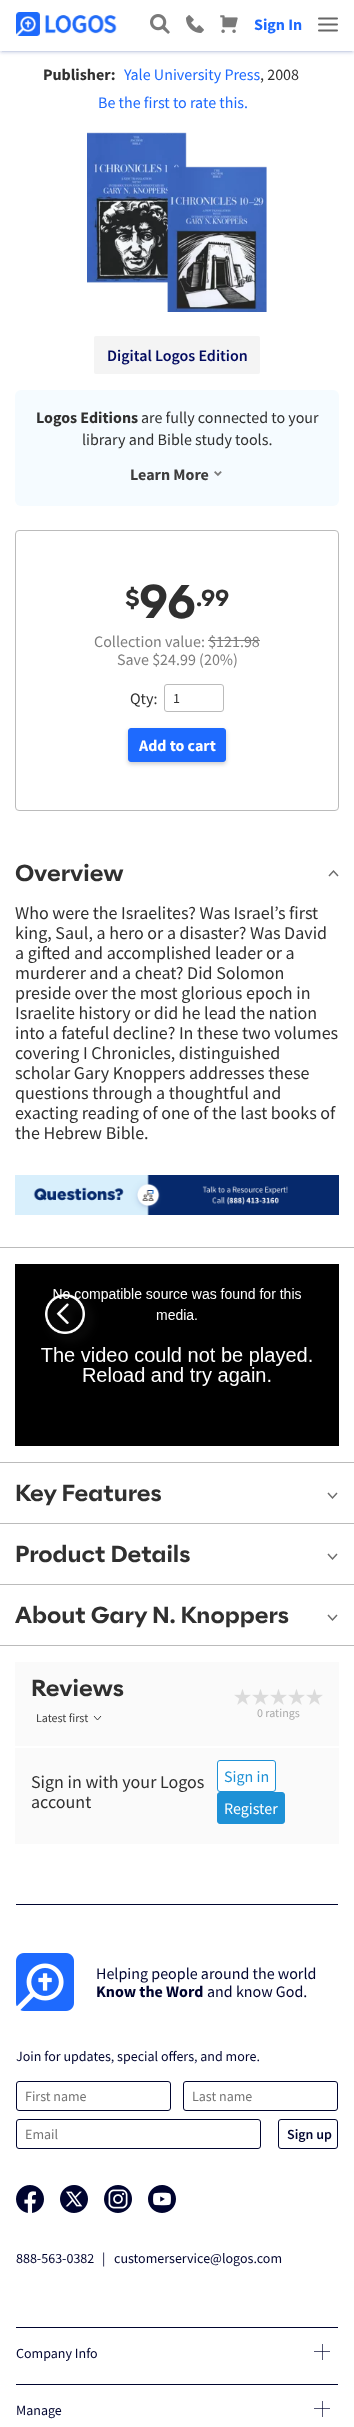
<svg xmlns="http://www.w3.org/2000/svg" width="354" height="2427">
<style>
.a{font:bold 16px Source Sans Pro;fill:#1e6afe}
.b{font:bold 16px Source Sans Pro;fill:#303030}
.c{font:16px Source Sans Pro;fill:#1e6afe}
.d{font:16px Source Sans Pro;fill:#303030}
.e{font:600 16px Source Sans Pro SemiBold;fill:#030b60}
.f{font:bold 16px Source Sans Pro;fill:#3d3d3d}
.g{font:600 22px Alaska;fill:#303030}
.h{font:600 45px Alaska;fill:#303030}
.i{font:16px Source Sans Pro;fill:#7e7e7e}
.j{font:14px Source Sans Pro;fill:#303030}
.k{font:bold 16px Source Sans Pro;fill:#fff}
.l{font:18px Source Sans Pro;fill:#303030}
.m{font:12px Source Sans Pro;fill:#3d3d3d}
.n{font:12px Source Sans Pro;fill:#aaa}
.o{font:16px Source Sans Pro;fill:#1e91d6}
.p{font:16px Source Sans Pro;fill:#fff}
.q{font:16px Source Sans Pro;fill:#00042f}
.r{font:bold 16px Source Sans Pro;fill:#00042f}
.s{font:14px Source Sans Pro;fill:#00042f}
.t{font:14px Source Sans Pro;fill:#757575}
.u{font:600 14px Source Sans Pro SemiBold;fill:#00042f}
</style>
<rect width="100%" height="100%" fill="#fff"/>
<path fill="#6e83b724" filter="blur(1px)" d="M0 2h354v51H0z"/>
<path fill="#6e83b71f" filter="blur(0.5px)" d="M2 5h350v47H2z"/>
<path fill="#6e83b733" filter="blur(2.5px)" d="M0 1h354v51H0z"/>
<path fill="#fff" d="M0 0h354v51H0z"/>
<image href="1.png" x="16" y="12" width="101" height="24"/>
<image href="2.png" x="150" y="14" width="20" height="20"/>
<image href="3.png" x="186" y="15" width="18" height="18"/>
<image href="4.png" x="220" y="15" width="18" height="18"/>
<path fill="none" stroke="#666" stroke-width="2" stroke-linecap="round" d="M337 18.5h-18m18 6h-18m18 6h-18"/>
<image href="5.png" x="87" y="132" width="180" height="180"/>
<rect fill="#f4f4f4" x="94" y="336" width="166" height="38" rx="2"/>
<rect fill="#f5fbff" x="15" y="390" width="324" height="116" rx="6"/>
<image href="6.png" x="214" y="471" width="8" height="6"/>
<rect fill="none" stroke="#bbb" x="15.5" y="530.5" width="323" height="280" rx="3.5"/>
<path fill="#7e7e7e" d="M208 640h52v1H208z"/>
<rect fill="none" stroke="#bbb" x="164.5" y="684.5" width="59" height="27" rx="2.5"/>
<rect fill="#00000033" filter="blur(2px)" x="128" y="730" width="98" height="34" rx="3"/>
<rect fill="#1e6afe" stroke="#1e6afe" x="128.5" y="728.5" width="97" height="33" rx="2.5"/>
<path fill="none" stroke="#6c6c6c" stroke-width="1.5" d="M329 876l4.5-5l4.5 5"/>
<image href="7.png" x="15" y="1175" width="324" height="40"/>
<path fill="#bbb" d="M0 1247h354v1H0z"/>
<path fill="#bbb" d="M0 1462h354v1H0z"/>
<image href="8.png" x="15" y="1264" width="324" height="182"/>
<path fill="#bbb" d="M0 1523h354v1H0z"/>
<path fill="none" stroke="#6c6c6c" stroke-width="1.5" d="M337 1493l-4.5 5l-4.5-5"/>
<path fill="#bbb" d="M0 1584h354v1H0z"/>
<path fill="none" stroke="#6c6c6c" stroke-width="1.5" d="M337 1554l-4.5 5l-4.5-5"/>
<path fill="#bbb" d="M0 1645h354v1H0z"/>
<path fill="none" stroke="#6c6c6c" stroke-width="1.5" d="M337 1615l-4.5 5l-4.5-5"/>
<path fill="#fafafa" d="M15 1662h324v84H15z"/>
<path fill="none" stroke="#3d3d3d" d="M101 1716l-3.5 4l-3.5-4"/>
<image href="9.png" x="234" y="1689" width="17" height="16"/>
<image href="9.png" x="252" y="1689" width="17" height="16"/>
<image href="9.png" x="270" y="1689" width="17" height="16"/>
<image href="9.png" x="288" y="1689" width="17" height="16"/>
<image href="9.png" x="306" y="1689" width="17" height="16"/>
<path fill="#fafafa" d="M15 1748h324v96H15z"/>
<rect fill="#fff" stroke="#1e91d6" x="217.5" y="1760.5" width="58" height="31" rx="2.5"/>
<rect fill="#1e91d6" stroke="#1e91d6" x="217.5" y="1792.5" width="67" height="31" rx="2.5"/>
<path fill="#00042f" d="M16 1904h322v1H16z"/>
<image href="10.png" x="16" y="1953" width="58" height="58"/>
<rect fill="none" stroke="#00042f" x="16.5" y="2081.5" width="154" height="29" rx="2.5"/>
<rect fill="none" stroke="#00042f" x="183.5" y="2081.5" width="154" height="29" rx="2.5"/>
<rect fill="none" stroke="#00042f" x="16.5" y="2119.5" width="244" height="29" rx="2.5"/>
<rect fill="none" stroke="#00042f" x="278.5" y="2119.5" width="59" height="29" rx="2.5"/>
<image href="11.png" x="16" y="2185" width="28" height="28"/>
<image href="12.png" x="60" y="2185" width="28" height="28"/>
<image href="13.png" x="104" y="2185" width="28" height="28"/>
<image href="14.png" x="148" y="2185" width="28" height="28"/>
<path fill="#00042f" d="M16 2327h322v1H16z"/>
<image href="15.png" x="314" y="2344" width="16" height="16"/>
<path fill="#00042f" d="M16 2384h322v1H16z"/>
<image href="15.png" x="314" y="2401" width="16" height="16"/>
<text class="a" x="254" y="30">Sign In</text>
<text class="b" x="43" y="80">Publisher:</text>
<text class="c" x="124" y="80">Yale University Press</text>
<text class="d" x="260" y="80">, 2008</text>
<text class="c" x="98" y="108">Be the first to rate this.</text>
<text class="e" x="107" y="361">Digital Logos Edition</text>
<text class="b" x="36" y="423">Logos Editions</text>
<text class="d" x="141" y="423">are fully connected to your</text>
<text class="d" x="82" y="445">library and Bible study tools.</text>
<text class="f" x="130" y="480">Learn More</text>
<text class="g" x="125" y="606">$</text>
<text class="h" x="139" y="618">96</text>
<text class="g" x="196" y="606">.99</text>
<text class="i" x="94" y="647">Collection value: $121.98</text>
<text class="i" x="117" y="665">Save $24.99 (20%)</text>
<text class="d" x="130" y="704">Qty:</text>
<text class="j" x="173" y="703">1</text>
<text class="k" x="139" y="751">Add to cart</text>
<text class="g" x="15" y="881">Overview</text>
<text class="l" x="15" y="919">Who were the Israelites? Was Israel’s first</text>
<text class="l" x="15" y="939">king, Saul, a hero or a disaster? Was David</text>
<text class="l" x="15" y="959">a gifted and accomplished leader or a</text>
<text class="l" x="15" y="979">murderer and a cheat? Did Solomon</text>
<text class="l" x="15" y="999">preside over the most glorious epoch in</text>
<text class="l" x="15" y="1019">Israelite history or did he lead the nation</text>
<text class="l" x="15" y="1039">into a fateful decline? In these two volumes</text>
<text class="l" x="15" y="1059">covering I Chronicles, distinguished</text>
<text class="l" x="15" y="1079">scholar Gary Knoppers addresses these</text>
<text class="l" x="15" y="1099">questions through a thoughtful and</text>
<text class="l" x="15" y="1119">exacting reading of one of the last books of</text>
<text class="l" x="15" y="1139">the Hebrew Bible.</text>
<text class="g" x="15" y="1501">Key Features</text>
<text class="g" x="15" y="1562">Product Details</text>
<text class="g" x="15" y="1623">About Gary N. Knoppers</text>
<text class="g" x="31" y="1696">Reviews</text>
<text class="m" x="36" y="1722">Latest first</text>
<text class="n" x="257" y="1717">0 ratings</text>
<text class="l" x="31" y="1788">Sign in with your Logos</text>
<text class="l" x="31" y="1808">account</text>
<text class="o" x="224" y="1782">Sign in</text>
<text class="p" x="224" y="1814">Register</text>
<text class="q" x="96" y="1979">Helping people around the world</text>
<text class="r" x="96" y="1997">Know the Word</text>
<text class="q" x="207" y="1997">and know God.</text>
<text class="s" x="16" y="2061">Join for updates, special offers, and more.</text>
<text class="t" x="25" y="2101">First name</text>
<text class="t" x="192" y="2101">Last name</text>
<text class="t" x="25" y="2139">Email</text>
<text class="u" x="287" y="2139">Sign up</text>
<text class="s" x="16" y="2263">888-563-0382</text>
<text class="s" x="102" y="2263">|</text>
<text class="s" x="114" y="2263">customerservice@logos.com</text>
<text class="s" x="16" y="2358">Company Info</text>
<text class="s" x="16" y="2415">Manage</text>
</svg>
